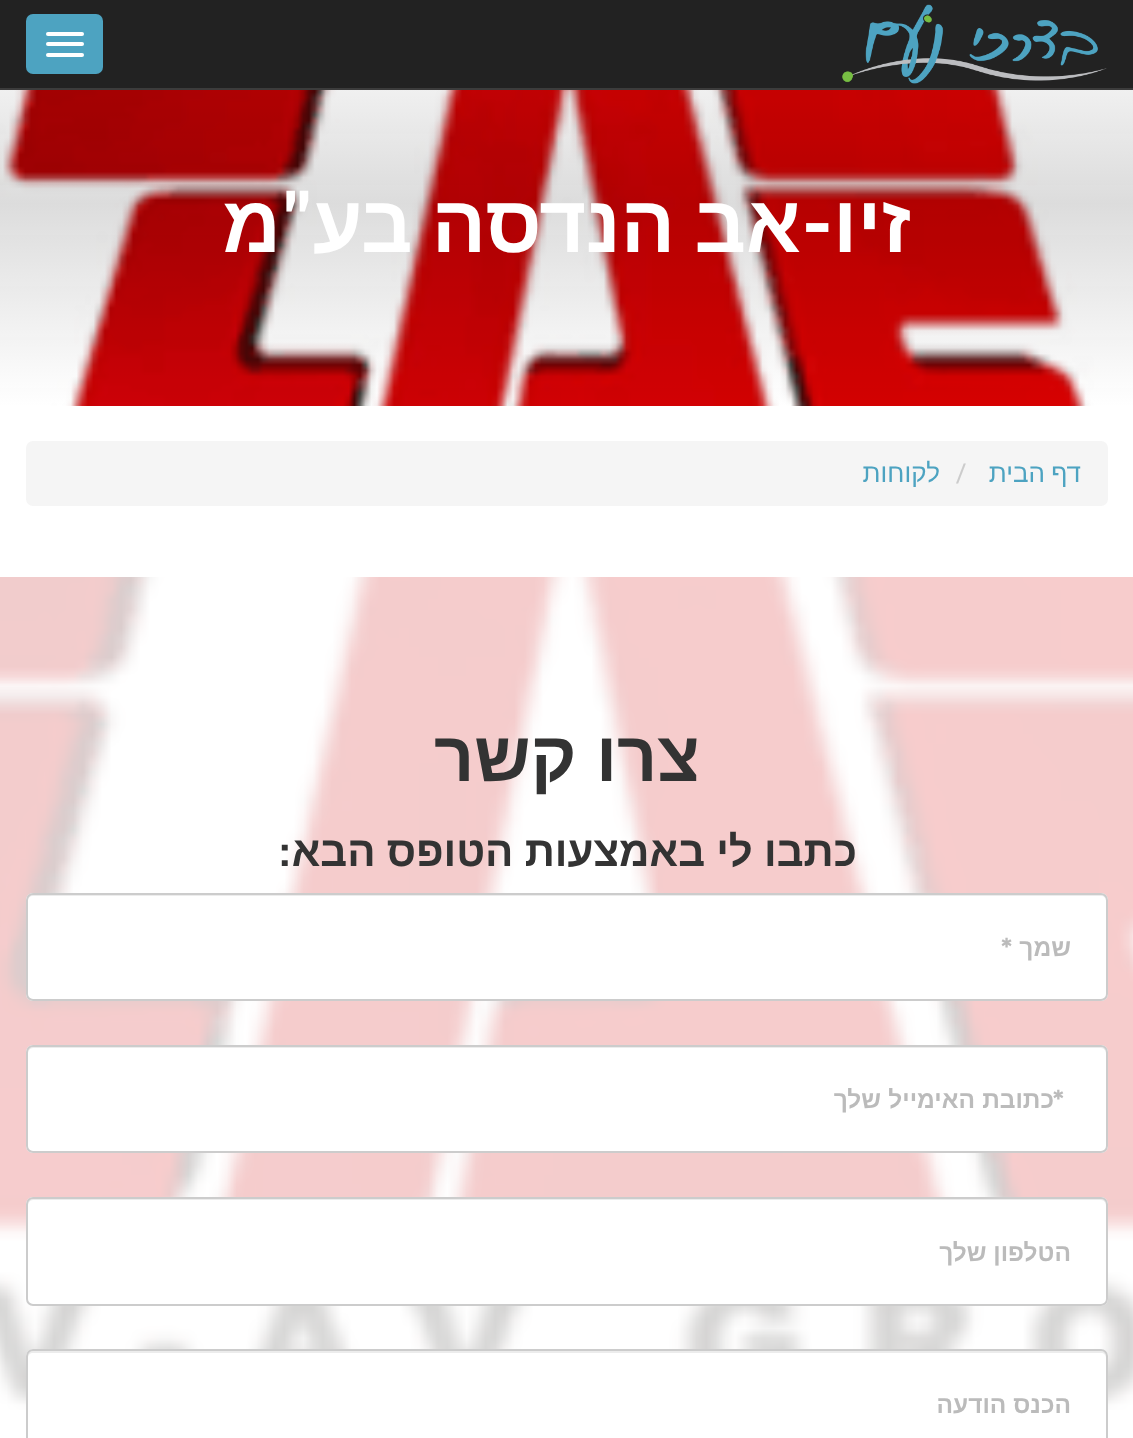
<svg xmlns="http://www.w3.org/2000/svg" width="1133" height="1438">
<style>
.a{font:bold 80.5px Liberation Sans;direction:rtl;fill:#fff}
.b{font:bold 80.5px Roboto Slab;direction:rtl;fill:#fff}
.c{font:26px Liberation Sans;direction:rtl;fill:#4da3c1}
.d{font:26px Roboto Slab;fill:#ccc}
.e{font:bold 70px Liberation Sans;direction:rtl;fill:#333}
.f{font:bold 42px Liberation Sans;direction:rtl;fill:#333}
.g{font:bold 24.5px Liberation Sans;direction:rtl;fill:#bbb}
.h{font:bold 24.5px Montserrat;direction:rtl;fill:#bbb}
.i{font:bold 24.5px Montserrat;fill:#bbb}
</style>
<rect width="100%" height="100%" fill="#fff"/>
<path fill="#222" d="M0 0h1133v88H0z"/>
<path fill="#3c3c3c" d="M0 88h1133v2H0z"/>
<image href="1.png" x="842" y="4" width="265" height="80"/>
<rect fill="#4da3c1" x="26" y="14" width="77" height="60" rx="7"/>
<rect fill="#fff" x="46" y="32" width="38" height="4" rx="2"/>
<rect fill="#fff" x="46" y="42" width="38" height="4" rx="2"/>
<rect fill="#fff" x="46" y="53" width="38" height="4" rx="2"/>
<image href="2.png" x="0" y="90" width="1133" height="316"/>
<rect fill="#f5f5f5" x="26" y="441" width="1082" height="65" rx="7"/>
<image href="3.png" x="0" y="577" width="1133" height="833"/>
<rect fill="#fff" x="26" y="893" width="1082" height="108" rx="7"/>
<path fill="#ececec" d="M33 896h1068c3 0 5 2 5 5v-2c0-3-2-5-5-5h-1068c-3 0-5 2-5 5v2c0-3 2-5 5-5z"/>
<rect fill="none" stroke="#ccc" stroke-width="2" x="27" y="894" width="1080" height="106" rx="6"/>
<rect fill="#fff" x="26" y="1045" width="1082" height="108" rx="7"/>
<path fill="#ececec" d="M33 1048h1068c3 0 5 3 5 6v-2c0-3-2-5-5-5h-1068c-3 0-5 2-5 5v2c0-3 2-6 5-6z"/>
<rect fill="none" stroke="#ccc" stroke-width="2" x="27" y="1046" width="1080" height="106" rx="6"/>
<rect fill="#fff" x="26" y="1197" width="1082" height="109" rx="7"/>
<path fill="#ececec" d="M33 1200h1068c3 0 5 3 5 6v-2c0-3-2-5-5-5h-1068c-3 0-5 2-5 5v2c0-3 2-6 5-6z"/>
<rect fill="none" stroke="#ccc" stroke-width="2" x="27" y="1198" width="1080" height="107" rx="6"/>
<rect fill="#fff" x="26" y="1349" width="1082" height="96" rx="7"/>
<path fill="#ececec" d="M33 1353h1068c3 0 5 2 5 5v-2c0-3-2-5-5-5h-1068c-3 0-5 2-5 5v2c0-3 2-5 5-5z"/>
<rect fill="none" stroke="#ccc" stroke-width="2" x="27" y="1350" width="1080" height="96" rx="6"/>
<text class="a" x="911" y="252">זיו</text>
<text class="b" x="833" y="252">-</text>
<text class="a" x="801" y="252" word-spacing="-3">אב הנדסה בע</text>
<text class="b" x="312" y="252">"</text>
<text class="a" x="281" y="252">מ</text>
<text class="c" x="1081" y="482" word-spacing="-1">דף הבית</text>
<text class="d" x="956" y="482">/</text>
<text class="c" x="940" y="482">לקוחות</text>
<text class="e" x="700" y="781">צרו קשר</text>
<text class="f" x="857" y="866" word-spacing="-0.5">כתבו לי באמצעות הטופס הבא:</text>
<text class="g" x="1071" y="956">שמך</text>
<text class="h" x="1012" y="956">*</text>
<text class="i" x="1053" y="1108">*</text>
<text class="g" x="1054" y="1108">כתובת</text>
<text class="g" x="975" y="1108">האימייל</text>
<text class="g" x="881" y="1108">שלך</text>
<text class="g" x="1071" y="1261">הטלפון שלך</text>
<text class="g" x="1071" y="1413">הכנס הודעה</text>
</svg>
